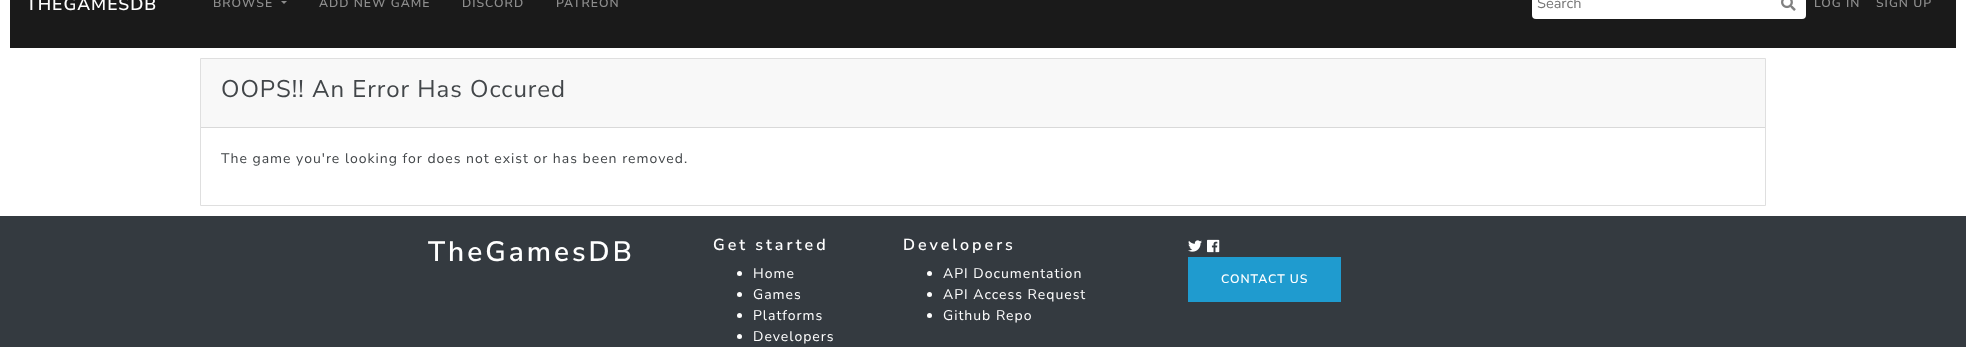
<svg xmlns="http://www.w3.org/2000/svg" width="1966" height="347">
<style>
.a{font:600 17.5px Nunito Sans;letter-spacing:1px;fill:#fff}
.b{font:600 12.25px Nunito Sans;letter-spacing:1px;fill:#8d8d8d}
.c{font:14.5px Nunito Sans;fill:#757575}
.d{font:24px Nunito Sans;letter-spacing:1px;fill:#424649}
.e{font:14px Nunito Sans;letter-spacing:1px;fill:#424649}
.f{font:600 28px Nunito Sans;letter-spacing:3px;fill:#fff}
.g{font:600 16px Nunito Sans;letter-spacing:3px;fill:#fff}
.h{font:14px Nunito Sans;letter-spacing:1px;fill:#fff}
.i{font:600 12.25px Nunito Sans;letter-spacing:1px;fill:#fff}
</style>
<rect width="100%" height="100%" fill="#fff"/>
<path fill="#1a1a1a" d="M10 0h1946v48H10z"/>
<path fill="#8d8d8d" d="M281 1h6l-3 3z"/>
<rect fill="#fff" x="1532" y="-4" width="274" height="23" rx="4"/>
<image href="1.png" x="1781" y="0" width="15" height="11"/>
<path fill="none" stroke="#dfdfdf" d="M200.5 58.5h1565v147H200.5z"/>
<path fill="#f8f8f8" d="M201 59h1564v68H201z"/>
<path fill="#d9d9d9" d="M201 127h1564v1H201z"/>
<path fill="#343a40" d="M0 216h1966v131H0z"/>
<circle fill="#fff" cx="739.5" cy="273.5" r="2.5"/>
<circle fill="#fff" cx="739.5" cy="294.5" r="2.5"/>
<circle fill="#fff" cx="739.5" cy="315.5" r="2.5"/>
<circle fill="#fff" cx="739.5" cy="336.5" r="2.5"/>
<circle fill="#fff" cx="929.5" cy="273.5" r="2.5"/>
<circle fill="#fff" cx="929.5" cy="294.5" r="2.5"/>
<circle fill="#fff" cx="929.5" cy="315.5" r="2.5"/>
<image href="2.png" x="1188" y="240" width="14" height="12"/>
<image href="3.png" x="1207" y="239" width="13" height="14"/>
<path fill="#1f9bcf" d="M1188 257h153v45H1188z"/>
<text class="a" x="26" y="10">THEGAMESDB</text>
<text class="b" x="213" y="7">BROWSE</text>
<text class="b" x="319" y="7">ADD NEW GAME</text>
<text class="b" x="462" y="7">DISCORD</text>
<text class="b" x="556" y="7">PATREON</text>
<text class="c" x="1537" y="8">Search</text>
<text class="b" x="1814" y="7">LOG IN</text>
<text class="b" x="1876" y="7">SIGN UP</text>
<text class="d" x="221" y="97">OOPS!! An Error Has Occured</text>
<text class="e" x="221" y="163">The game you're looking for does not exist or has been removed.</text>
<text class="f" x="428" y="261">TheGamesDB</text>
<text class="g" x="713" y="250">Get started</text>
<text class="h" x="753" y="278">Home</text>
<text class="h" x="753" y="299">Games</text>
<text class="h" x="753" y="320">Platforms</text>
<text class="h" x="753" y="341">Developers</text>
<text class="g" x="903" y="250">Developers</text>
<text class="h" x="943" y="278">API Documentation</text>
<text class="h" x="943" y="299">API Access Request</text>
<text class="h" x="943" y="320">Github Repo</text>
<text class="i" x="1221" y="283">CONTACT US</text>
</svg>
